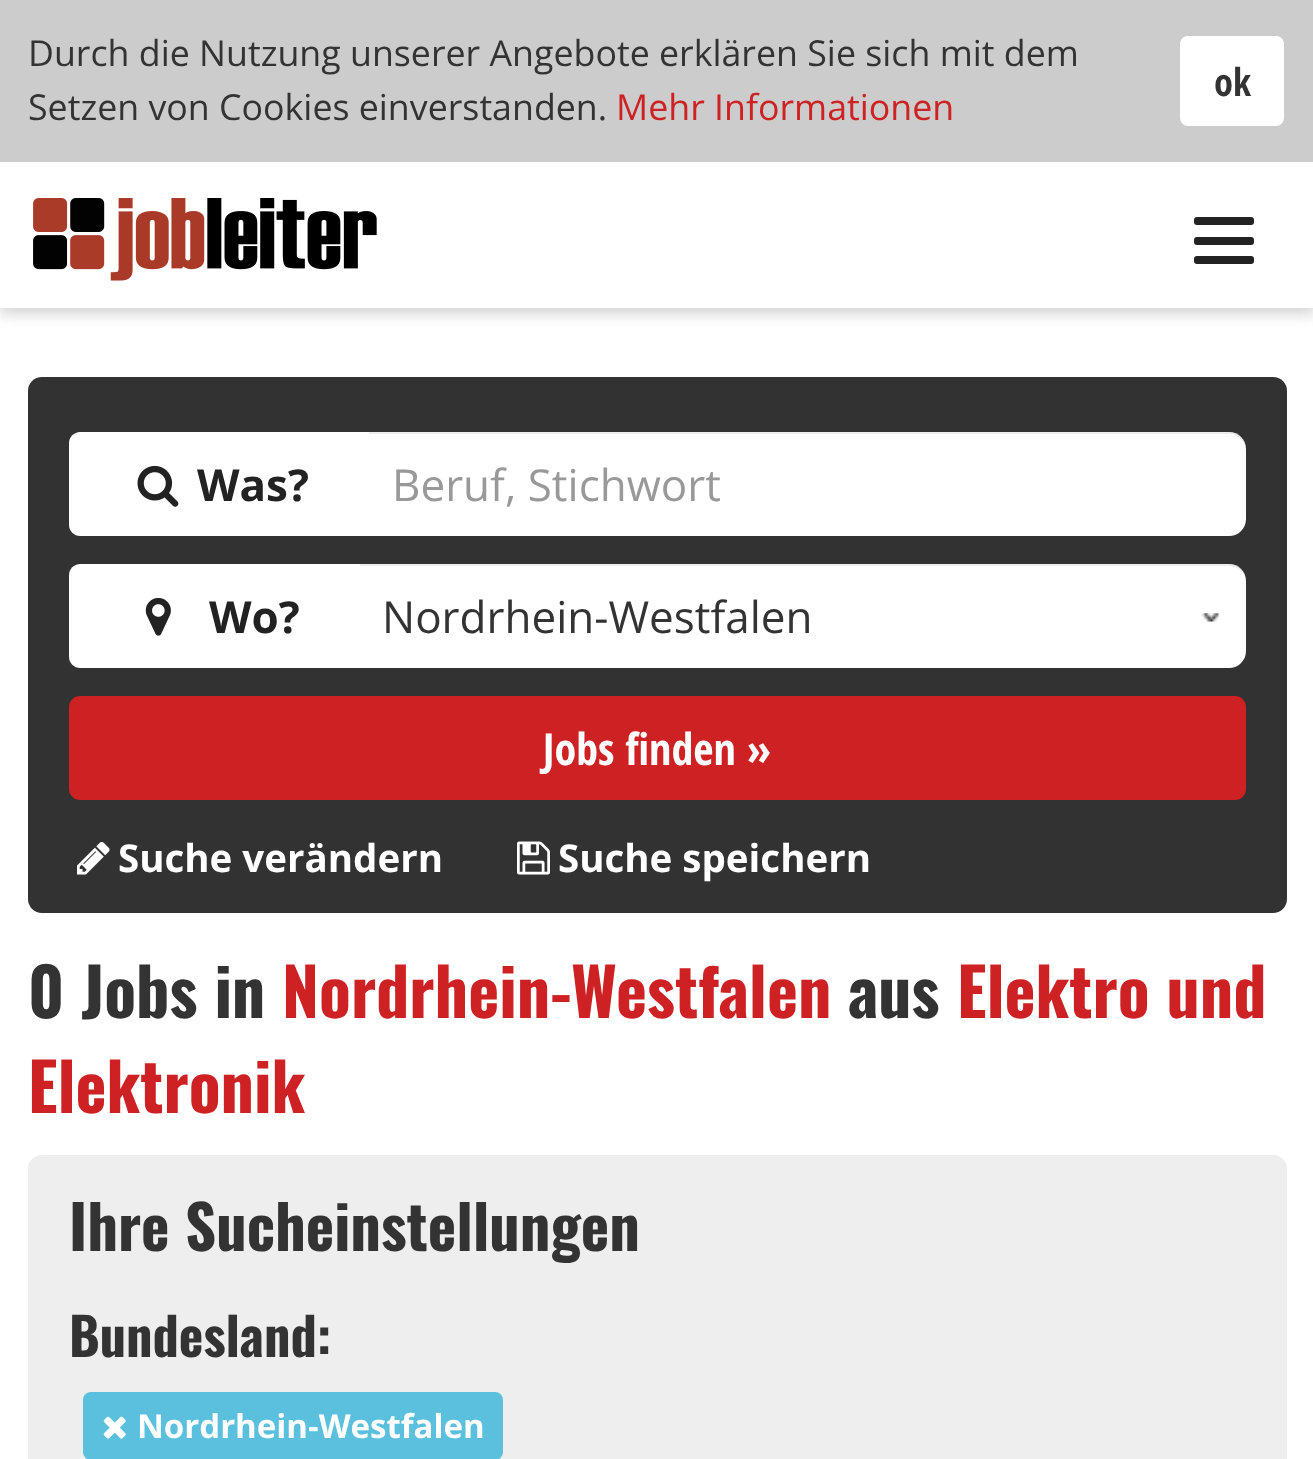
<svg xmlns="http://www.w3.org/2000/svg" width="1313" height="1459">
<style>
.a{font:35.75px Open Sans;fill:#333}
.b{font:35.75px Open Sans;fill:#ce2123}
.c{font:bold 38.5px Open Sans Condensed;fill:#333}
.d{font:bold 44px Open Sans;fill:#222}
.e{font:44px Open Sans;fill:#999}
.f{font:44px Open Sans;fill:#333}
.g{font:bold 44px Open Sans Condensed;fill:#fff}
.h{font:bold 38.5px Open Sans;fill:#fff}
.i{font:bold 66px Oswald;fill:#333}
.j{font:bold 66px Oswald;fill:#ce2123}
.k{font:bold 60.5px Oswald;fill:#333}
.l{font:bold 52.25px Oswald;fill:#333}
.m{font:bold 33px Open Sans;fill:#fff}
</style>
<rect width="100%" height="100%" fill="#fff"/>
<path fill="#90909066" filter="blur(7px)" d="M0 168h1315v146H0z"/>
<path fill="#ccc" d="M0 0h1313v162H0z"/>
<rect fill="#fff" stroke="#ccc" stroke-width="3" x="1178.5" y="34.5" width="107" height="93" rx="9.5"/>
<path fill="#fff" d="M0 162h1313v146H0z"/>
<image href="1.png" x="33" y="198" width="344" height="83"/>
<rect fill="#222" x="1194" y="217" width="60" height="8" rx="3"/>
<rect fill="#222" x="1194" y="237" width="60" height="8" rx="3"/>
<rect fill="#222" x="1194" y="256" width="60" height="8" rx="3"/>
<rect fill="#323232" x="28" y="377" width="1259" height="536" rx="14"/>
<path fill="#fff" d="M80 432h289v104h-289c-6 0-11-5-11-11v-82c0-6 5-11 11-11z"/>
<image href="2.png" x="137" y="465" width="42" height="42"/>
<path fill="#fff" d="M369 432h860c9.5 0 17 7.5 17 17v70c0 9.5-7.5 17-17 17h-860z"/>
<path fill="#00000012" d="M369 432v2h860c9 0 17 8 17 17c0-10-6-19-17-19z"/>
<path fill="#fff" d="M80 564h280v104h-280c-6 0-11-5-11-11v-82c0-6 5-11 11-11z"/>
<image href="3.png" x="145" y="597" width="26" height="39"/>
<path fill="#fff" d="M360 564h869c9.5 0 17 7.5 17 17v70c0 9.5-7.5 17-17 17h-869z"/>
<image href="4.png" x="1201" y="613" width="19" height="9"/>
<path fill="#00000012" d="M360 566h869c9 0 17 8 17 17c0-10-6-19-17-19h-869z"/>
<rect fill="#ce2123" x="69" y="696" width="1177" height="104" rx="11"/>
<image href="5.png" x="77" y="842" width="33" height="33"/>
<image href="6.png" x="517" y="841" width="33" height="34"/>
<rect fill="#eee" x="28" y="1155" width="1259" height="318" rx="14"/>
<rect fill="#5bc0de" x="83" y="1392" width="420" height="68" rx="8"/>
<image href="7.png" x="103" y="1416" width="23" height="23"/>
<text class="a" x="28" y="66">Durch die Nutzung unserer Angebote erklären Sie sich mit dem</text>
<text class="a" x="28" y="120">Setzen von Cookies einverstanden.</text>
<text class="b" x="616" y="120">Mehr Informationen</text>
<text class="c" x="1214" y="96">ok</text>
<text class="d" x="197" y="501">Was?</text>
<text class="e" x="392" y="501">Beruf, Stichwort</text>
<text class="d" x="209" y="633">Wo?</text>
<text class="f" x="382" y="633">Nordrhein-Westfalen</text>
<text class="g" x="543" y="765">Jobs finden »</text>
<text class="h" x="118" y="872">Suche verändern</text>
<text class="h" x="558" y="872">Suche speichern</text>
<text class="i" x="28" y="1018">0 Jobs in</text>
<text class="j" x="282" y="1018">Nordrhein-Westfalen</text>
<text class="i" x="848" y="1018">aus</text>
<text class="j" x="957" y="1018">Elektro und</text>
<text class="j" x="28" y="1113">Elektronik</text>
<text class="k" x="69" y="1251">Ihre Sucheinstellungen</text>
<text class="l" x="69" y="1357">Bundesland:</text>
<text class="m" x="137" y="1438">Nordrhein-Westfalen</text>
</svg>
